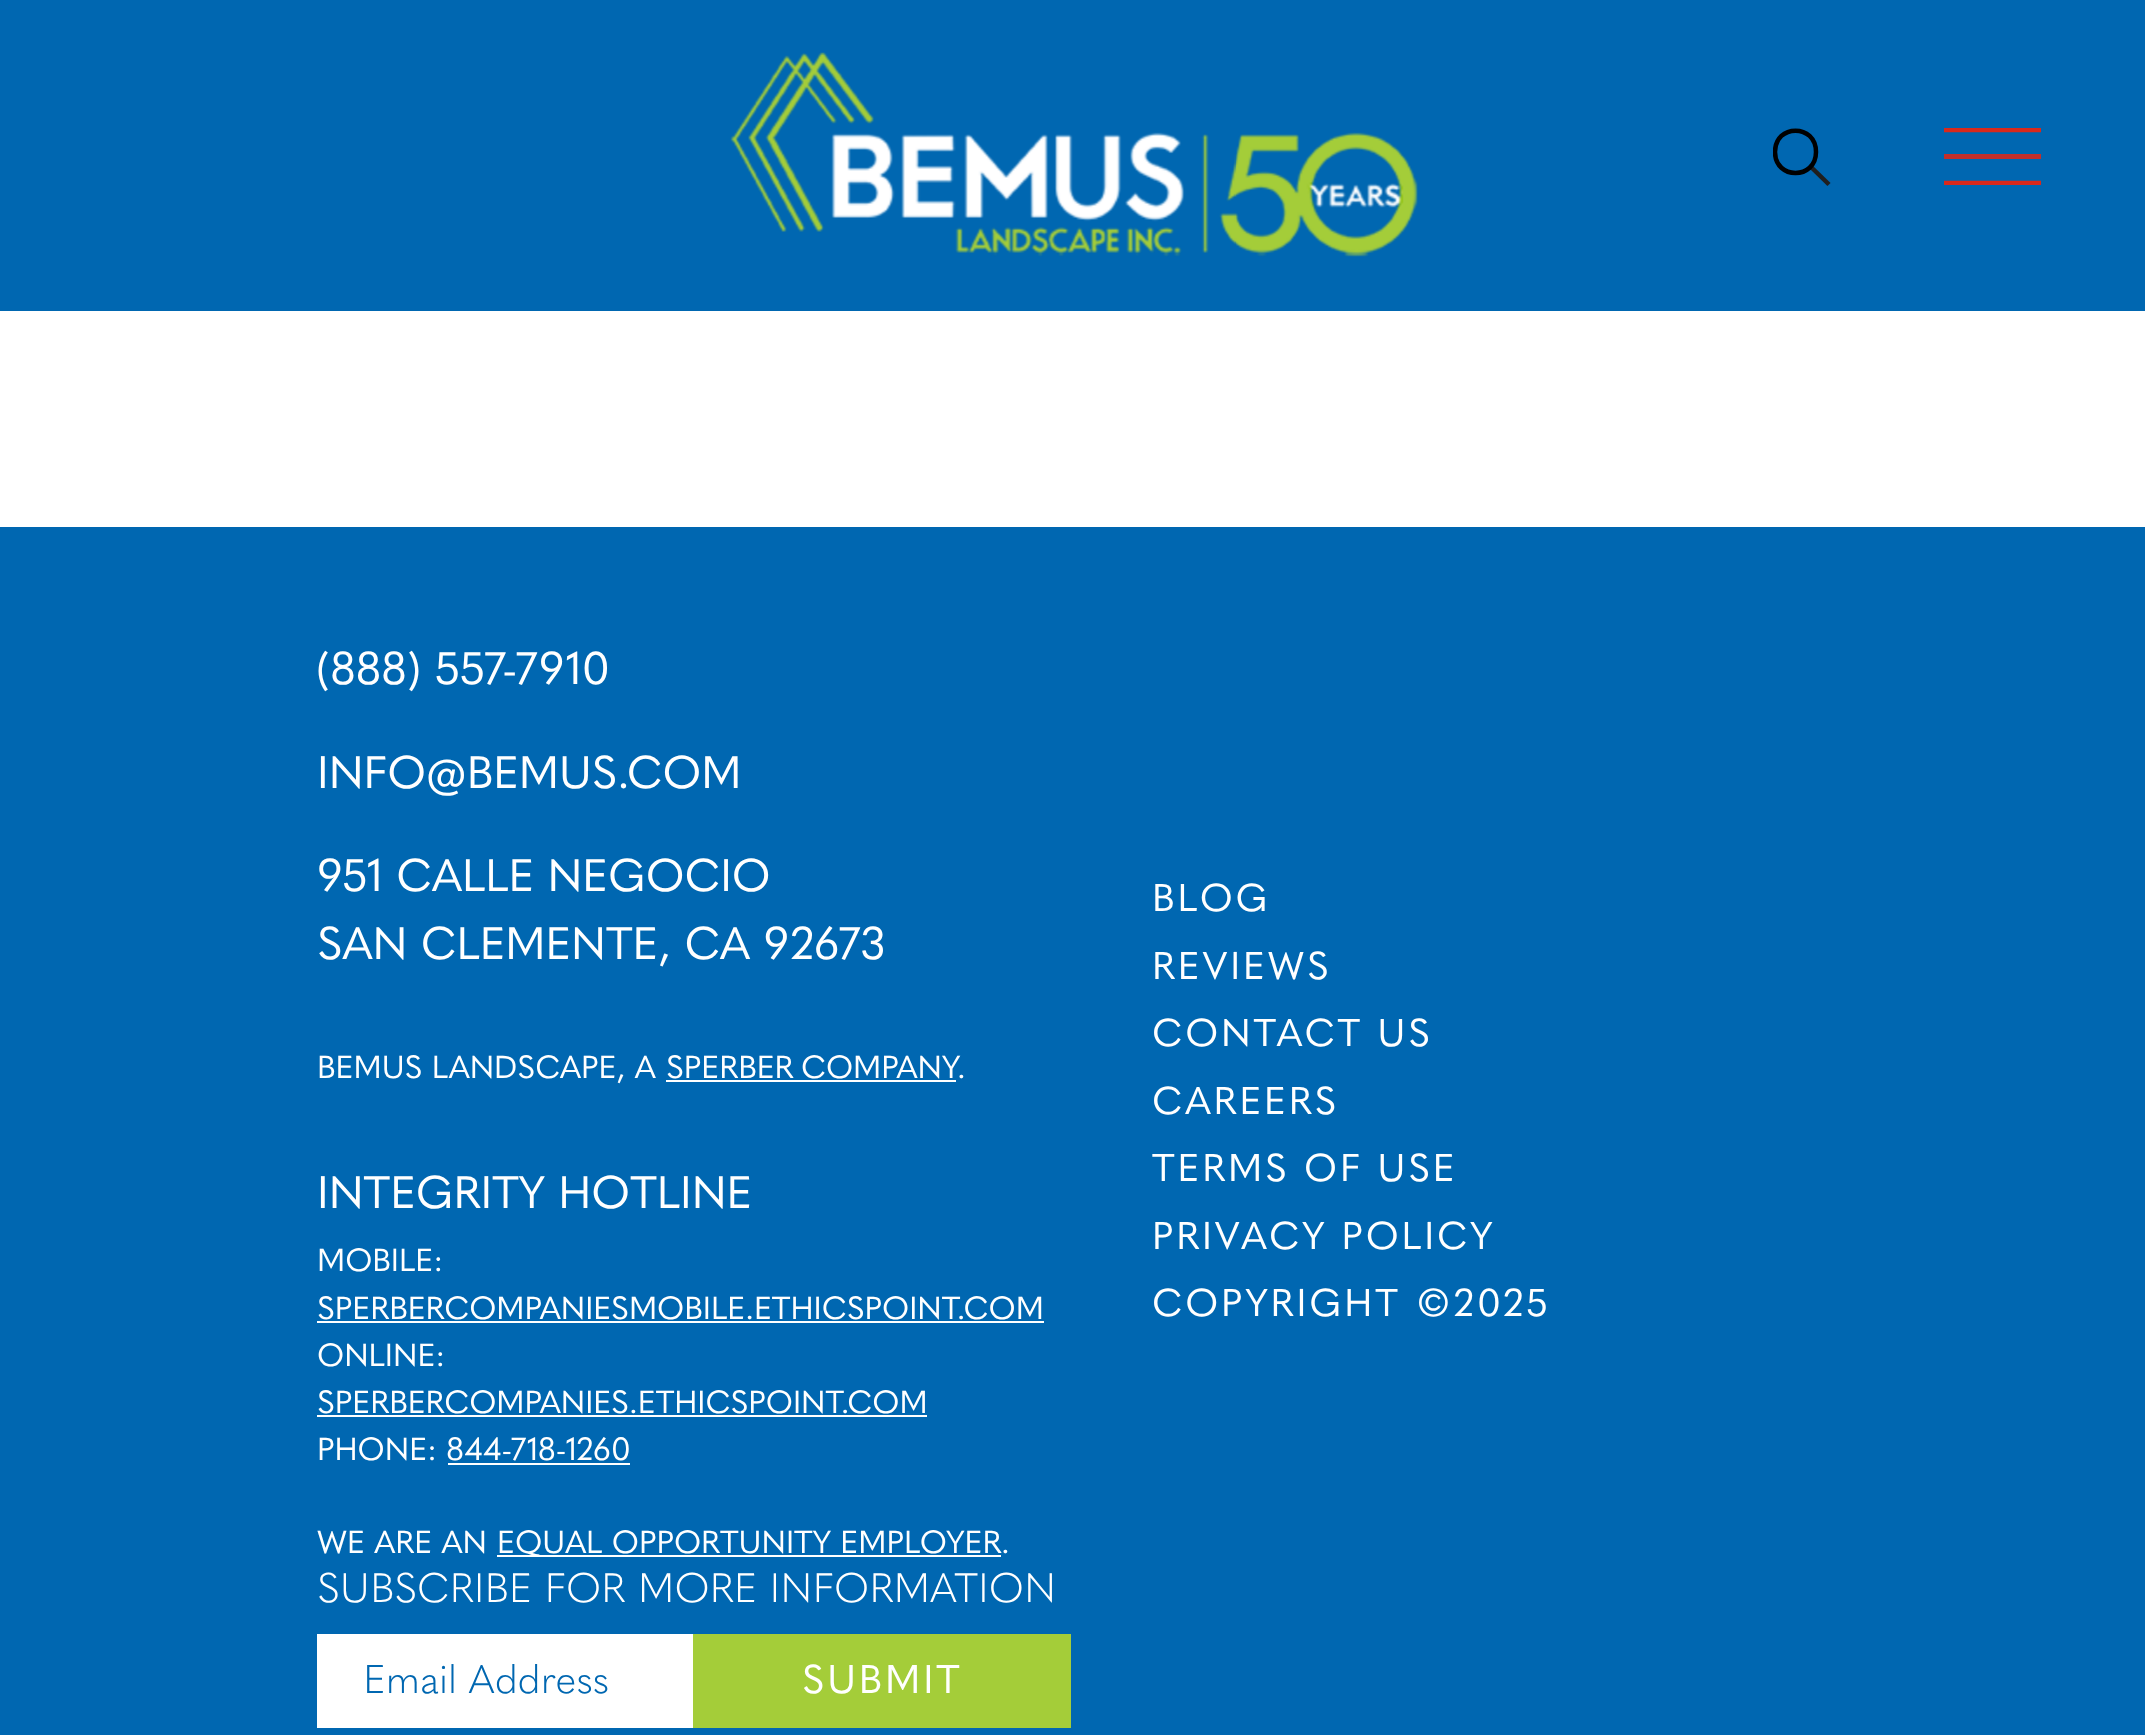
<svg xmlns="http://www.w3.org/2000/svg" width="2145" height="1735">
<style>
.a{font:45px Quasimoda;fill:#fff}
.b{font:31.5px Quasimoda;fill:#fff}
.c{font:38.25px Quasimoda;letter-spacing:2.9px;fill:#fff}
.d{font:300 40.5px Quasimoda;fill:#fff}
.e{font:300 39.5px Quasimoda;fill:#0067b1}
.f{font:39.5px Quasimoda;letter-spacing:2.9px;fill:#fff}
</style>
<defs>
<clipPath id="clip1"><path d="M1773 128h59v59H1773z"/></clipPath>
<clipPath id="clip2"><path d="M1944 128h97v57H1944z"/></clipPath>
</defs>
<rect width="100%" height="100%" fill="#fff"/>
<path fill="#0067b1" d="M0 0h2145v311H0z"/>
<image href="1.png" x="730" y="52" width="688" height="205"/>
<path fill="none" stroke="#1f1f1f" stroke-width="4.5" d="M1810 166l19 18.5"/>
<g clip-path="url(#clip1)">
<path fill="none" stroke="#000" stroke-width="4.5" d="M1816 152c0 28-41 28-41 0c0-28.5 41-28.5 41 0z"/>
</g>
<g clip-path="url(#clip2)">
<path fill="none" stroke="#d9291c" stroke-width="4.5" d="M1944 130h97.5"/>
</g>
<path fill="#c32f2b" d="M1944 154h97v5H1944z"/>
<g clip-path="url(#clip2)">
<path fill="none" stroke="#d9291c" stroke-width="4.5" d="M1944 183h97.5"/>
</g>
<path fill="#0067b1" d="M0 527h2145v1208H0z"/>
<path fill="#fff" d="M666 1080h290v2H666z"/>
<path fill="#fff" d="M317 1321h727v2H317z"/>
<path fill="#fff" d="M317 1415h610v2H317z"/>
<path fill="#fff" d="M448 1463h182v2H448z"/>
<path fill="#fff" d="M497 1555h504v2H497z"/>
<path fill="#fff" stroke="#fff" stroke-width="5" d="M319.5 1636.5h371v89H319.5z"/>
<path fill="#a4cd39" d="M693 1634h378v94H693z"/>
<text class="a" x="317" y="684">(888) 557-7910</text>
<text class="a" x="317" y="788">INFO@BEMUS.COM</text>
<text class="a" x="317" y="891">951 CALLE NEGOCIO</text>
<text class="a" x="317" y="959">SAN CLEMENTE, CA 92673</text>
<text class="b" x="317" y="1078">BEMUS LANDSCAPE, A</text>
<text class="b" x="666" y="1078" word-spacing="-2">SPERBER COMPANY</text>
<text class="b" x="957" y="1078">.</text>
<text class="a" x="317" y="1208">INTEGRITY HOTLINE</text>
<text class="b" x="317" y="1271">MOBILE:</text>
<text class="b" x="317" y="1319">SPERBERCOMPANIESMOBILE.ETHICSPOINT.COM</text>
<text class="b" x="317" y="1366">ONLINE:</text>
<text class="b" x="317" y="1413">SPERBERCOMPANIES.ETHICSPOINT.COM</text>
<text class="b" x="317" y="1460">PHONE: 844-718-1260</text>
<text class="b" x="317" y="1553">WE ARE AN</text>
<text class="b" x="497" y="1553">EQUAL OPPORTUNITY EMPLOYER</text>
<text class="b" x="1001" y="1553">.</text>
<text class="c" x="1152" y="911">BLOG</text>
<text class="c" x="1152" y="979">REVIEWS</text>
<text class="c" x="1152" y="1046">CONTACT US</text>
<text class="c" x="1152" y="1114">CAREERS</text>
<text class="c" x="1152" y="1181">TERMS OF USE</text>
<text class="c" x="1152" y="1249">PRIVACY POLICY</text>
<text class="c" x="1152" y="1316">COPYRIGHT ©2025</text>
<text class="d" x="317" y="1602">SUBSCRIBE FOR MORE INFORMATION</text>
<text class="e" x="363" y="1693">Email Address</text>
<text class="f" x="802" y="1693">SUBMIT</text>
</svg>
